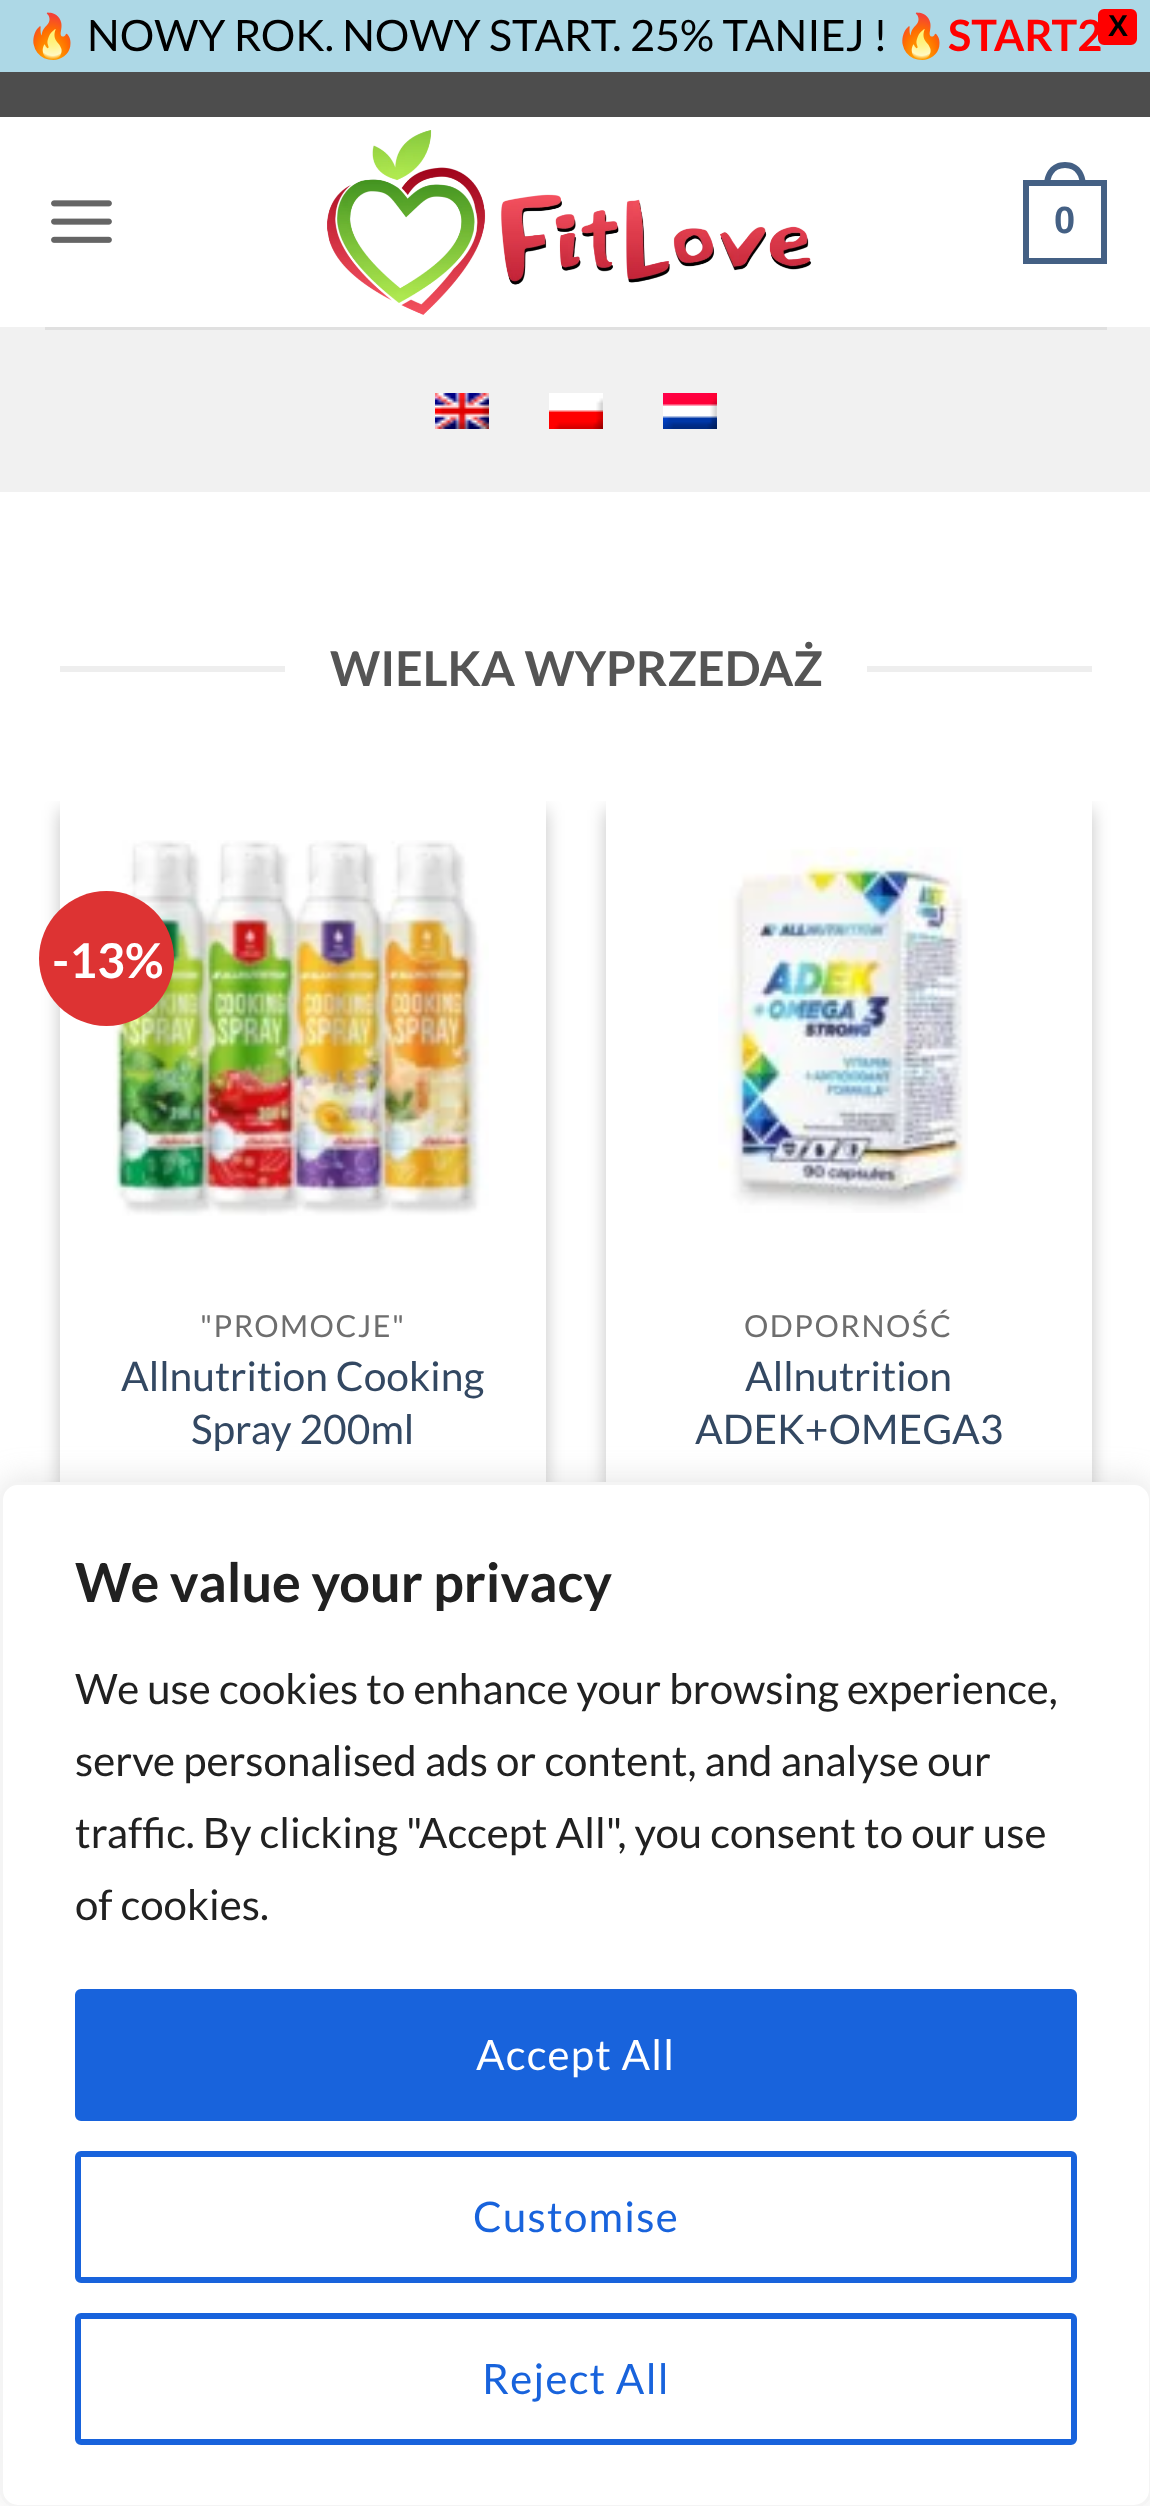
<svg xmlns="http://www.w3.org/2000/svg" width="1150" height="2506">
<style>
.a{font:43.25px Noto Color Emoji;fill:#000}
.b{font:43.25px Lato;fill:#000}
.c{font:43.25px 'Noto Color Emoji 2';fill:#000}
.d{font:bold 43.25px Lato;fill:#f00}
.e{font:bold 30px Liberation Sans;fill:#000}
.f{font:bold 38px Liberation Sans;fill:#446084}
.g{font:bold 48px Lato;fill:#555}
.h{font:bold 48px Lato;fill:#fff}
.i{font:30.5px Lato;letter-spacing:1.5px;fill:#6e6e6e}
.j{font:40.75px Lato;fill:#334862}
.k{font:bold 54px Lato;fill:#212121}
.l{font:42px Lato;fill:#212121}
.m{font:42px Lato;letter-spacing:1.25px;fill:#fff}
.n{font:42px Lato;letter-spacing:1.25px;fill:#1863dc}
</style>
<defs>
<clipPath id="clip1"><path d="M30 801h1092v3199H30z"/></clipPath>
<clipPath id="clip2"><path d="M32 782h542v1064h-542zm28 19h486v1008h-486z" clip-rule="evenodd"/></clipPath>
<clipPath id="clip3"><path d="M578 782h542v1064h-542zm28 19h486v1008h-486z" clip-rule="evenodd"/></clipPath>
</defs>
<rect width="100%" height="100%" fill="#4d4d4d"/>
<path fill="#add8e6" d="M0 0h1150v72H0z"/>
<rect fill="#f00" stroke="#f00" stroke-width="3" x="1099.5" y="10.5" width="36" height="33" rx="4.5"/>
<path fill="#fff" d="M0 117h1150v2389H0z"/>
<image href="1.png" x="51" y="200" width="61" height="43"/>
<image href="2.png" x="327" y="130" width="485" height="185"/>
<path fill="none" stroke="#446084" stroke-width="6" d="M1026 183h78v78H1026z"/>
<path fill="#446084" fill-rule="evenodd" d="M1065 162c14 0 21 11 21 24h-42c0-13 7-24 21-24zm0 6c11 0 15 9 15 18h-30c0-9 4-18 15-18z"/>
<path fill="#f1f1f1" d="M0 327h1150v165H0z"/>
<path fill="#e0e0e0" d="M45 327h1062v3H45z"/>
<image href="3.png" x="435" y="393" width="54" height="36"/>
<image href="4.png" x="549" y="393" width="54" height="36"/>
<image href="5.png" x="663" y="393" width="54" height="36"/>
<path fill="#eee" d="M60 666h225v6H60z"/>
<path fill="#eee" d="M867 666h225v6H867z"/>
<g clip-path="url(#clip1)">
<g clip-path="url(#clip2)">
<path fill="#0000003b" filter="blur(9px)" d="M60 810h486v1008H60z"/>
</g>
</g>
<image href="6.png" x="113" y="840" width="376" height="376"/>
<circle fill="#d33" cx="106.5" cy="958.5" r="67.5"/>
<g clip-path="url(#clip1)">
<g clip-path="url(#clip3)">
<path fill="#0000003b" filter="blur(9px)" d="M606 810h486v1008H606z"/>
</g>
</g>
<image href="7.png" x="718" y="847" width="250" height="366"/>
<rect fill="#acabab4d" filter="blur(15px)" y="1479" width="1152" height="1026" rx="18"/>
<rect fill="#fff" stroke="#f4f4f4" stroke-width="3" x="1.5" y="1483.5" width="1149" height="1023" rx="16.5"/>
<rect fill="#1863dc" stroke="#1863dc" stroke-width="6" x="78" y="1992" width="996" height="126" rx="3"/>
<rect fill="none" stroke="#1863dc" stroke-width="6" x="78" y="2154" width="996" height="126" rx="3"/>
<rect fill="none" stroke="#1863dc" stroke-width="6" x="78" y="2316" width="996" height="126" rx="3"/>
<text class="a" x="25" y="51">🔥</text>
<text class="b" x="87" y="51">NOWY ROK. NOWY START. 25% TANIEJ !</text>
<text class="c" x="894" y="51">🔥</text>
<text class="d" x="948" y="51">START2</text>
<text class="e" x="1108" y="36">X</text>
<text class="f" x="1054" y="233">0</text>
<text class="g" x="330" y="686">WIELKA WYPRZEDAŻ</text>
<text class="h" x="52" y="978">-13%</text>
<text class="i" x="200" y="1337">"PROMOCJE"</text>
<text class="j" x="121" y="1391">Allnutrition Cooking</text>
<text class="j" x="191" y="1444">Spray 200ml</text>
<text class="i" x="744" y="1337">ODPORNOŚĆ</text>
<text class="j" x="745" y="1391">Allnutrition</text>
<text class="j" x="695" y="1444">ADEK+OMEGA3</text>
<text class="k" x="75" y="1602">We value your privacy</text>
<text class="l" x="75" y="1704">We use cookies to enhance your browsing experience,</text>
<text class="l" x="75" y="1776">serve personalised ads or content, and analyse our</text>
<text class="l" x="75" y="1848">traffic. By clicking "Accept All", you consent to our use</text>
<text class="l" x="75" y="1920">of cookies.</text>
<text class="m" x="476" y="2070">Accept All</text>
<text class="n" x="473" y="2232">Customise</text>
<text class="n" x="482" y="2394">Reject All</text>
</svg>
